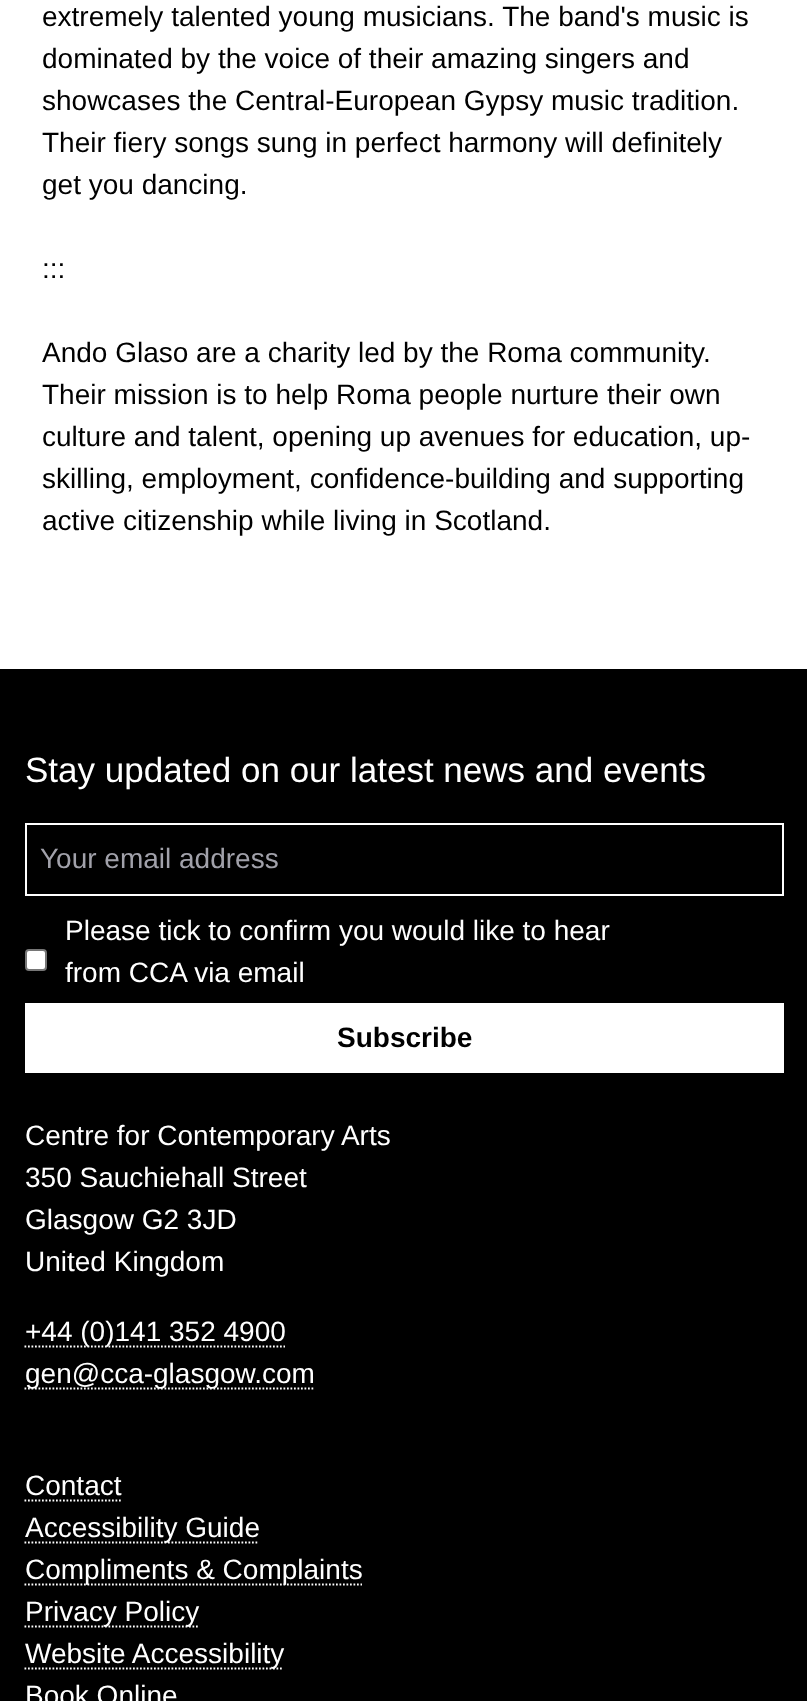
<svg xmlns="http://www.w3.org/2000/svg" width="807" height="1701">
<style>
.a{font:28px Liberation Sans;fill:#000}
.b{font:35px Liberation Sans;fill:#fff}
.c{font:28px Liberation Sans;fill:#a1a1aa}
.d{font:28px Liberation Sans;fill:#fff}
.e{font:bold 28px Liberation Sans;fill:#000}
</style>
<rect width="100%" height="100%" fill="#fff"/>
<path fill="#000" d="M0 669h807v1032H0z"/>
<path fill="none" stroke="#fff" stroke-width="2" d="M26 824h757v71H26z"/>
<rect fill="#fff" stroke="#767676" stroke-width="2" x="26" y="950" width="20" height="20" rx="3"/>
<path fill="#fff" d="M25 1003h759v70H25z"/>
<path fill="none" stroke="#fff" stroke-width="1.8" stroke-dasharray="1.75 1.75" d="M24.5 1346.5h260.5"/>
<path fill="none" stroke="#fff" stroke-width="1.8" stroke-dasharray="1.75 1.75" d="M24.5 1388.5h290.5"/>
<path fill="none" stroke="#fff" stroke-width="1.8" stroke-dasharray="1.75 1.75" d="M24.5 1500.5h96.5"/>
<path fill="none" stroke="#fff" stroke-width="1.8" stroke-dasharray="1.75 1.75" d="M24.5 1542.5h234.5"/>
<path fill="none" stroke="#fff" stroke-width="1.8" stroke-dasharray="1.75 1.75" d="M24.5 1584.5h337.5"/>
<path fill="none" stroke="#fff" stroke-width="1.8" stroke-dasharray="1.75 1.75" d="M24.5 1626.5h175"/>
<path fill="none" stroke="#fff" stroke-width="1.8" stroke-dasharray="1.75 1.75" d="M24.5 1668.5h259"/>
<text class="a" x="42" y="26">extremely talented young musicians. The band's music is</text>
<text class="a" x="42" y="68">dominated by the voice of their amazing singers and</text>
<text class="a" x="42" y="110">showcases the Central-European Gypsy music tradition.</text>
<text class="a" x="42" y="152">Their fiery songs sung in perfect harmony will definitely</text>
<text class="a" x="42" y="194">get you dancing.</text>
<text class="a" x="42" y="278">:::</text>
<text class="a" x="42" y="362">Ando Glaso are a charity led by the Roma community.</text>
<text class="a" x="42" y="404">Their mission is to help Roma people nurture their own</text>
<text class="a" x="42" y="446">culture and talent, opening up avenues for education, up-</text>
<text class="a" x="42" y="488">skilling, employment, confidence-building and supporting</text>
<text class="a" x="42" y="530">active citizenship while living in Scotland.</text>
<text class="b" x="25" y="782">Stay updated on our latest news and events</text>
<text class="c" x="40" y="868">Your email address</text>
<text class="d" x="65" y="940">Please tick to confirm you would like to hear</text>
<text class="d" x="65" y="982">from CCA via email</text>
<text class="e" x="337" y="1047">Subscribe</text>
<text class="d" x="25" y="1145">Centre for Contemporary Arts</text>
<text class="d" x="25" y="1187">350 Sauchiehall Street</text>
<text class="d" x="25" y="1229">Glasgow G2 3JD</text>
<text class="d" x="25" y="1271">United Kingdom</text>
<text class="d" x="25" y="1341">+44 (0)141 352 4900</text>
<text class="d" x="25" y="1383">gen@cca-glasgow.com</text>
<text class="d" x="25" y="1495">Contact</text>
<text class="d" x="25" y="1537">Accessibility Guide</text>
<text class="d" x="25" y="1579">Compliments &amp; Complaints</text>
<text class="d" x="25" y="1621">Privacy Policy</text>
<text class="d" x="25" y="1663">Website Accessibility</text>
<text class="d" x="25" y="1705">Book Online</text>
</svg>
